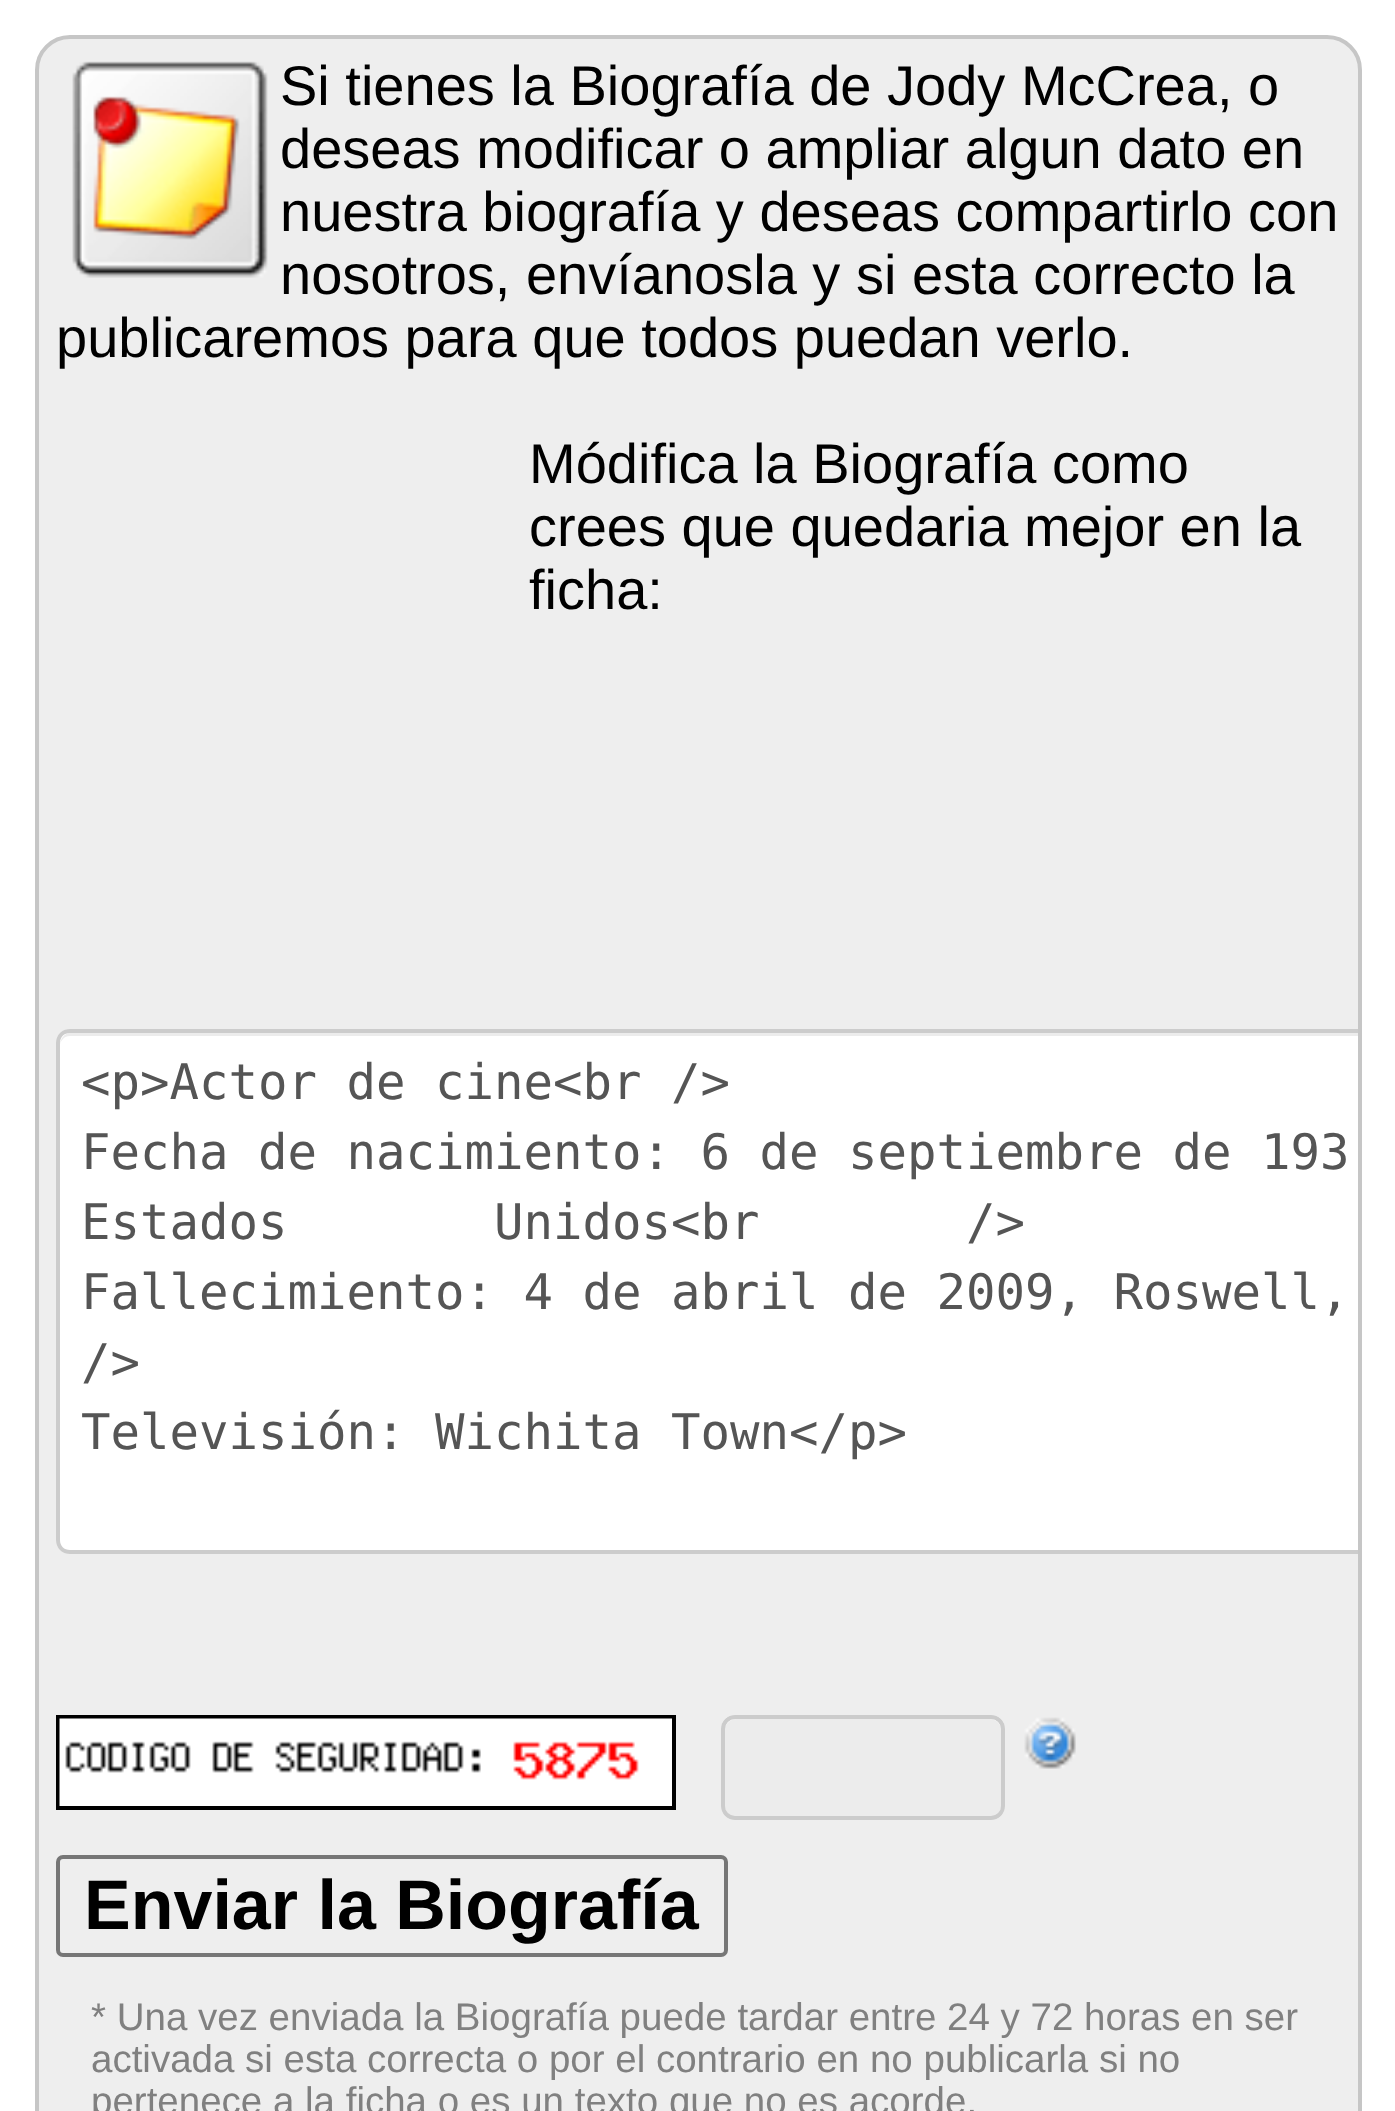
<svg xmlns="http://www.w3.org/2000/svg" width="1395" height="2111">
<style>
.a{font:56px Liberation Sans;fill:#000}
.b{font:49px DejaVu Sans Mono;fill:#555}
.c{font:bold 70px Liberation Sans;fill:#000}
.d{font:38.5px Liberation Sans;fill:#808080}
</style>
<rect width="100%" height="100%" fill="#fff"/>
<rect fill="#eee" stroke="#c6c6c6" stroke-width="4" x="37" y="37" width="1323" height="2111" rx="33"/>
<image href="1.png" x="72" y="61" width="196" height="217"/>
<path fill="#fff" d="M70 1029h1288v525h-1288c-7.5 0-14-6.5-14-14v-497c0-7.5 6.5-14 14-14z"/>
<path fill="#ececec" d="M70 1036h1288v-3h-1287c-7 0-11 6-11 13c0-5 4-10 10-10z"/>
<path fill="#ccc" d="M70 1029c-8 0-14 6-14 14v497c0 8 6 14 14 14h1288v-4h-1288c-6 0-10-4-10-10v-497c0-6 4-10 10-10h1288v-4z"/>
<path fill="none" stroke="#000" stroke-width="4" d="M58 1717h616v91H58z"/>
<image href="2.png" x="59" y="1718" width="613" height="88"/>
<rect fill="#fff" x="721" y="1715" width="284" height="105" rx="14"/>
<path fill="#ececec" d="M736 1719c-5 0-10 4-11 9v78c0 6 5 11 11 11h254c6 0 11-5 11-11v-76c0-6-5-11-11-11z"/>
<rect fill="none" stroke="#ccc" stroke-width="4" x="723" y="1717" width="280" height="101" rx="12"/>
<image href="3.png" x="1024" y="1717" width="52" height="52"/>
<rect fill="none" stroke="#767676" stroke-width="4" x="58" y="1857" width="668" height="98" rx="5"/>
<text class="a" x="280" y="105">Si tienes la Biografía de Jody McCrea, o</text>
<text class="a" x="280" y="168">deseas modificar o ampliar algun dato en</text>
<text class="a" x="280" y="231">nuestra biografía y deseas compartirlo con</text>
<text class="a" x="280" y="294">nosotros, envíanosla y si esta correcto la</text>
<text class="a" x="56" y="357">publicaremos para que todos puedan verlo.</text>
<text class="a" x="529" y="483">Módifica la Biografía como</text>
<text class="a" x="529" y="546">crees que quedaria mejor en la</text>
<text class="a" x="529" y="609">ficha:</text>
<text class="b" x="81" y="1099">&lt;p&gt;Actor de cine&lt;br /&gt;</text>
<text class="b" x="81" y="1169">Fecha de nacimiento: 6 de septiembre de 193</text>
<text class="b" x="81" y="1239" word-spacing="177">Estados Unidos&lt;br /&gt;</text>
<text class="b" x="81" y="1309">Fallecimiento: 4 de abril de 2009, Roswell,</text>
<text class="b" x="81" y="1379">/&gt;</text>
<text class="b" x="81" y="1449">Televisión: Wichita Town&lt;/p&gt;</text>
<text class="c" x="84" y="1929">Enviar la Biografía</text>
<text class="d" x="91" y="2030">* Una vez enviada la Biografía puede tardar entre 24 y 72 horas en ser</text>
<text class="d" x="91" y="2072">activada si esta correcta o por el contrario en no publicarla si no</text>
<text class="d" x="91" y="2114">pertenece a la ficha o es un texto que no es acorde.</text>
</svg>
